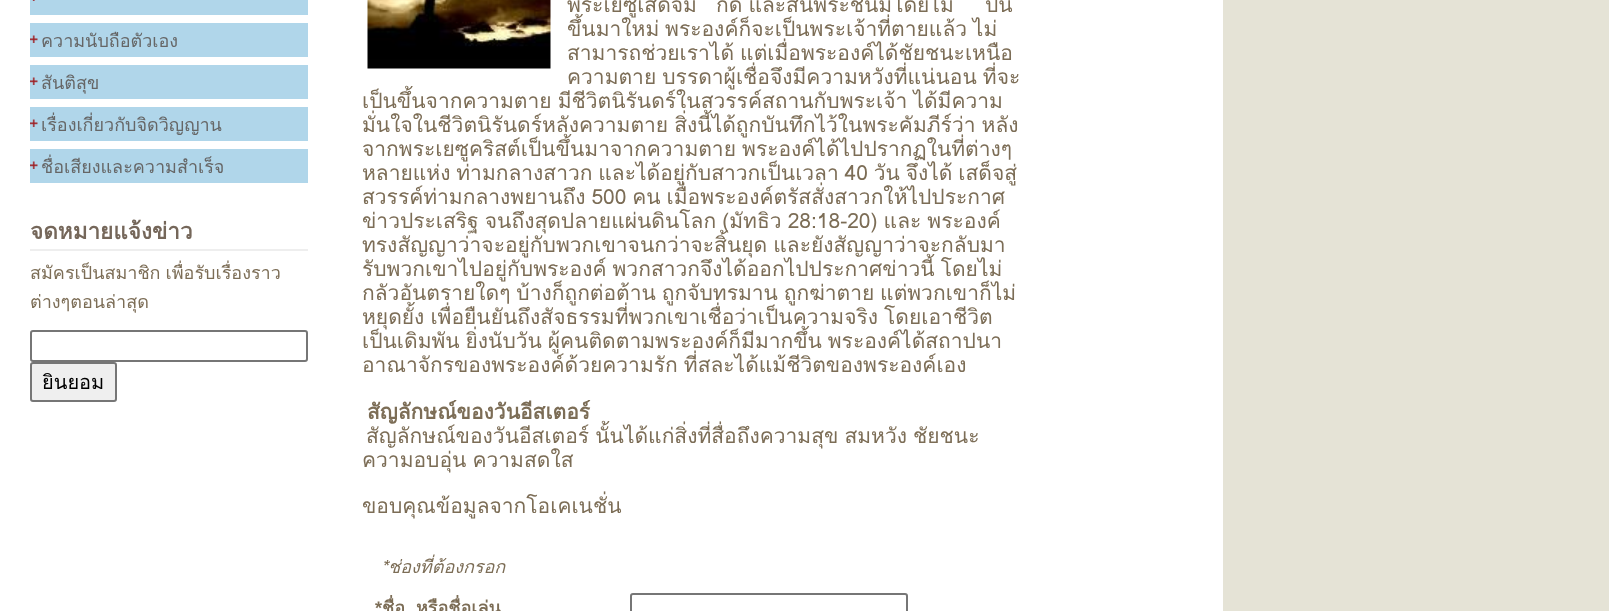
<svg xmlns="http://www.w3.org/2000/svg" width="1609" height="611">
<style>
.a{font:18px Loma;fill:#666}
.b{font:bold 22.5px Loma;fill:#75675a}
.c{font:18px Loma;fill:#7c6d56}
.d{font:20px Loma;fill:#000}
.e{font:21px Loma;fill:#7c6d56}
.f{font:bold 21px Loma;fill:#7c6d56}
.g{font:italic 18px Loma;fill:#7c6d56}
.h{font:bold 18px Loma;fill:#7c6d56}
.i{font:bold 18px Liberation Sans;fill:#7c6d56}
</style>
<rect width="100%" height="100%" fill="#e5e3d6"/>
<path fill="#fff" d="M0 0h1223v611H0z"/>
<path fill="#b0d6ea" d="M30 0h278v15H30z"/>
<image href="1.png" x="32" y="0" width="3" height="1"/>
<path fill="#b0d6ea" d="M30 23h278v34H30z"/>
<image href="2.png" x="30" y="35" width="8" height="8"/>
<path fill="#b0d6ea" d="M30 65h278v34H30z"/>
<image href="2.png" x="30" y="77" width="8" height="8"/>
<path fill="#b0d6ea" d="M30 107h278v34H30z"/>
<image href="2.png" x="30" y="119" width="8" height="8"/>
<path fill="#b0d6ea" d="M30 149h278v34H30z"/>
<image href="2.png" x="30" y="161" width="8" height="8"/>
<path fill="#eee" d="M30 249h278v2H30z"/>
<rect fill="none" stroke="#767676" stroke-width="2" x="31" y="331" width="276" height="30" rx="2"/>
<rect fill="#efefef" stroke="#767676" stroke-width="2" x="31" y="363" width="85" height="38" rx="2"/>
<image href="3.png" x="367" y="0" width="184" height="69"/>
<rect fill="none" stroke="#767676" stroke-width="2" x="631" y="594" width="276" height="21" rx="2"/>
<text class="a" x="41" y="47">ความนับถือตัวเอง</text>
<text class="a" x="41" y="89">สันติสุข</text>
<text class="a" x="41" y="131">เรื่องเกี่ยวกับจิดวิญญาน</text>
<text class="a" x="41" y="173">ชื่อเสียงและความสำเร็จ</text>
<text class="b" x="30" y="239">จดหมายแจ้งข่าว</text>
<text class="c" x="30" y="279" word-spacing="-1">สมัครเป็นสมาชิก เพื่อรับเรื่องราว</text>
<text class="c" x="30" y="308">ต่างๆตอนล่าสุด</text>
<text class="d" x="42" y="389">ยินยอม</text>
<text class="e" x="567" y="12" word-spacing="-1">พระเยซูเสด็จม</text>
<text class="e" x="716" y="12" word-spacing="-1">กิด และสิ้นพระชนม์โดยไม่</text>
<text class="e" x="985" y="12" word-spacing="-1">ป็น</text>
<text class="e" x="567" y="36" word-spacing="-1.25">ขึ้นมาใหม่ พระองค์ก็จะเป็นพระเจ้าที่ตายแล้ว ไม่</text>
<text class="e" x="567" y="60" word-spacing="-1">สามารถช่วยเราได้ แต่เมื่อพระองค์ได้ชัยชนะเหนือ</text>
<text class="e" x="567" y="84" word-spacing="-1">ความตาย บรรดาผู้เชื่อจึงมีความหวังที่แน่นอน ที่จะ</text>
<text class="e" x="362" y="108" word-spacing="-1">เป็นขึ้นจากความตาย มีชีวิตนิรันดร์ในสวรรค์สถานกับพระเจ้า ได้มีความ</text>
<text class="e" x="362" y="132" word-spacing="-1">มั่นใจในชีวิตนิรันดร์หลังความตาย สิ่งนี้ได้ถูกบันทึกไว้ในพระคัมภีร์ว่า หลัง</text>
<text class="e" x="362" y="156" word-spacing="-1">จากพระเยซูคริสต์เป็นขึ้นมาจากความตาย พระองค์ได้ไปปรากฏในที่ต่างๆ</text>
<text class="e" x="362" y="180" word-spacing="-1.25">หลายแห่ง ท่ามกลางสาวก และได้อยู่กับสาวกเป็นเวลา 40 วัน จึงได้ เสด็จสู่</text>
<text class="e" x="362" y="204" word-spacing="-1.25">สวรรค์ท่ามกลางพยานถึง 500 คน เมื่อพระองค์ตรัสสั่งสาวกให้ไปประกาศ</text>
<text class="e" x="362" y="228" word-spacing="-1">ข่าวประเสริฐ จนถึงสุดปลายแผ่นดินโลก (มัทธิว 28:18-20) และ พระองค์</text>
<text class="e" x="362" y="252" word-spacing="-1">ทรงสัญญาว่าจะอยู่กับพวกเขาจนกว่าจะสิ้นยุด และยังสัญญาว่าจะกลับมา</text>
<text class="e" x="362" y="276" word-spacing="-1">รับพวกเขาไปอยู่กับพระองค์ พวกสาวกจึงได้ออกไปประกาศข่าวนี้ โดยไม่</text>
<text class="e" x="362" y="300" word-spacing="-1.25">กลัวอันตรายใดๆ บ้างก็ถูกต่อต้าน ถูกจับทรมาน ถูกฆ่าตาย แต่พวกเขาก็ไม่</text>
<text class="e" x="362" y="324" word-spacing="-1">หยุดยั้ง เพื่อยืนยันถึงสัจธรรมที่พวกเขาเชื่อว่าเป็นความจริง โดยเอาชีวิต</text>
<text class="e" x="362" y="348" word-spacing="-1.25">เป็นเดิมพัน ยิ่งนับวัน ผู้คนติดตามพระองค์ก็มีมากขึ้น พระองค์ได้สถาปนา</text>
<text class="e" x="362" y="372" word-spacing="-1">อาณาจักรของพระองค์ด้วยความรัก ที่สละได้แม้ชีวิตของพระองค์เอง</text>
<text class="f" x="367" y="419">สัญลักษณ์ของวันอีสเตอร์</text>
<text class="e" x="366" y="443" word-spacing="-1">สัญลักษณ์ของวันอีสเตอร์ นั้นได้แก่สิ่งที่สื่อถึงความสุข สมหวัง ชัยชนะ</text>
<text class="e" x="362" y="467" word-spacing="-1">ความอบอุ่น ความสดใส</text>
<text class="e" x="362" y="513">ขอบคุณข้อมูลจากโอเคเนชั่น</text>
<text class="g" x="381" y="573">*ช่องที่ต้องกรอก</text>
<text class="h" x="416" y="614">หรือชื่อเล่น</text>
<text class="i" x="375" y="614">*</text>
<text class="h" x="382" y="614">ชื่อ</text>
</svg>
